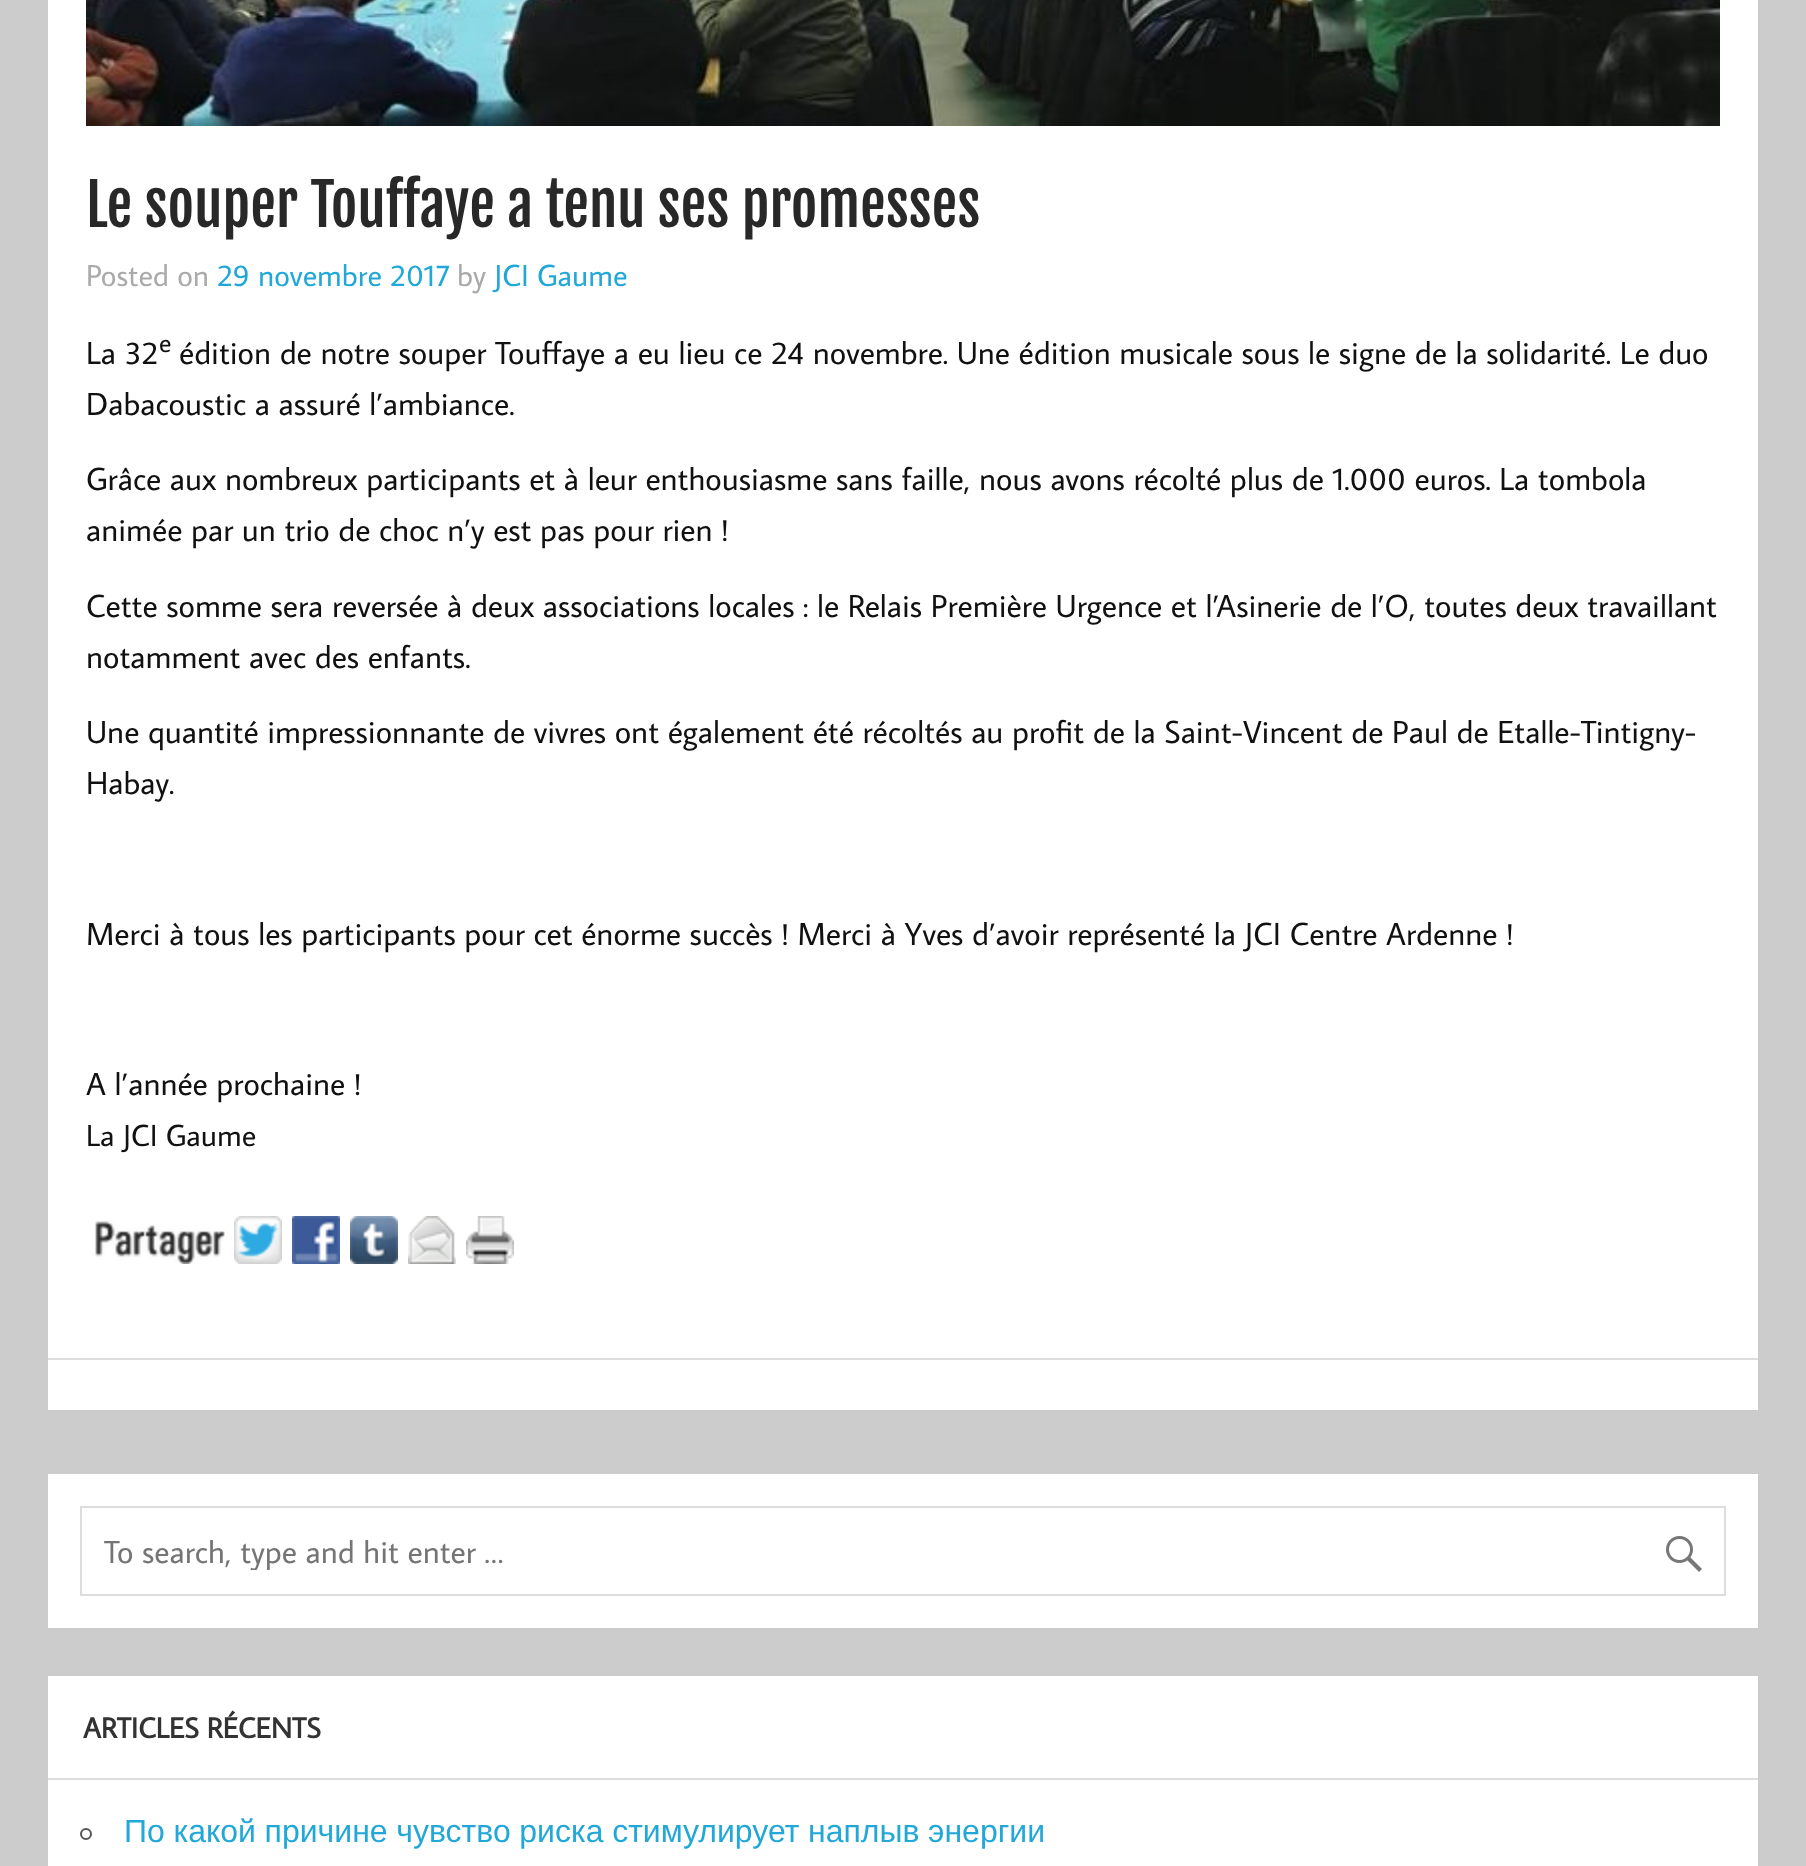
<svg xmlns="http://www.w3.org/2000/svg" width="1806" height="1866">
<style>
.a{font:57.6px Fjalla One;fill:#282828}
.b{font:30.5px Average Sans;fill:#aaa}
.c{font:30.5px Average Sans;fill:#22a8d8}
.d{font:32px Average Sans;fill:#111}
.e{font:26px Average Sans;fill:#111}
.f{font:30.5px Average Sans;fill:#111}
.g{font:32px Average Sans;fill:#757575}
.h{font:bold 28.75px Average Sans;fill:#333}
.i{font:32px Liberation Sans;fill:#22a8d8}
</style>
<defs>
<clipPath id="clip1"><path d="M104 1530h1500v40H104z"/></clipPath>
</defs>
<rect width="100%" height="100%" fill="#ccc"/>
<path fill="#fff" d="M48 0h1710v1410H48z"/>
<image href="1.png" x="86" y="0" width="1634" height="126"/>
<image href="2.png" x="94" y="1220" width="131" height="44"/>
<image href="3.png" x="234" y="1216" width="48" height="48"/>
<image href="4.png" x="292" y="1216" width="48" height="48"/>
<image href="5.png" x="350" y="1216" width="48" height="48"/>
<image href="6.png" x="408" y="1216" width="48" height="48"/>
<image href="7.png" x="466" y="1216" width="48" height="48"/>
<path fill="#ddd" d="M48 1358h1710v2H48z"/>
<path fill="#fff" d="M48 1474h1710v154H48z"/>
<path fill="none" stroke="#ddd" stroke-width="2" d="M81 1507h1644v88H81z"/>
<image href="8.png" x="1666" y="1536" width="36" height="36"/>
<path fill="#fff" d="M48 1676h1710v190H48z"/>
<path fill="#ddd" d="M48 1778h1710v2H48z"/>
<circle fill="none" stroke="#555" stroke-width="2" cx="86" cy="1834" r="5"/>
<text class="a" x="86" y="227">Le souper Touffaye a tenu ses promesses</text>
<text class="b" x="86" y="286">Posted on</text>
<text class="c" x="217" y="286">29 novembre 2017</text>
<text class="b" x="457" y="286">by</text>
<text class="c" x="494" y="286">JCI Gaume</text>
<text class="d" x="86" y="364">La 32</text>
<text class="e" x="159" y="352">e</text>
<text class="d" x="179" y="364">édition de notre souper Touffaye a eu lieu ce 24 novembre. Une édition musicale sous le signe de la solidarité. Le duo</text>
<text class="d" x="86" y="415">Dabacoustic a assuré l’ambiance.</text>
<text class="d" x="86" y="490">Grâce aux nombreux participants et à leur enthousiasme sans faille, nous avons récolté plus de 1.000 euros. La tombola</text>
<text class="d" x="86" y="541">animée par un trio de choc n’y est pas pour rien !</text>
<text class="d" x="86" y="617">Cette somme sera reversée à deux associations locales : le Relais Première Urgence et l’Asinerie de l’O, toutes deux travaillant</text>
<text class="d" x="86" y="668">notamment avec des enfants.</text>
<text class="d" x="86" y="743">Une quantité impressionnante de vivres ont également été récoltés au profit de la Saint-Vincent de Paul de Etalle-Tintigny-</text>
<text class="d" x="86" y="794">Habay.</text>
<text class="d" x="86" y="945">Merci à tous les participants pour cet énorme succès ! Merci à Yves d’avoir représenté la JCI Centre Ardenne !</text>
<text class="d" x="86" y="1095">A l’année prochaine !</text>
<text class="f" x="86" y="1146">La JCI Gaume</text>
<g clip-path="url(#clip1)">
<text class="g" x="104" y="1563">To search, type and hit enter …</text>
</g>
<text class="h" x="83" y="1738">ARTICLES RÉCENTS</text>
<text class="i" x="124" y="1842" word-spacing="-0.25">По какой причине чувство риска стимулирует наплыв энергии</text>
</svg>
